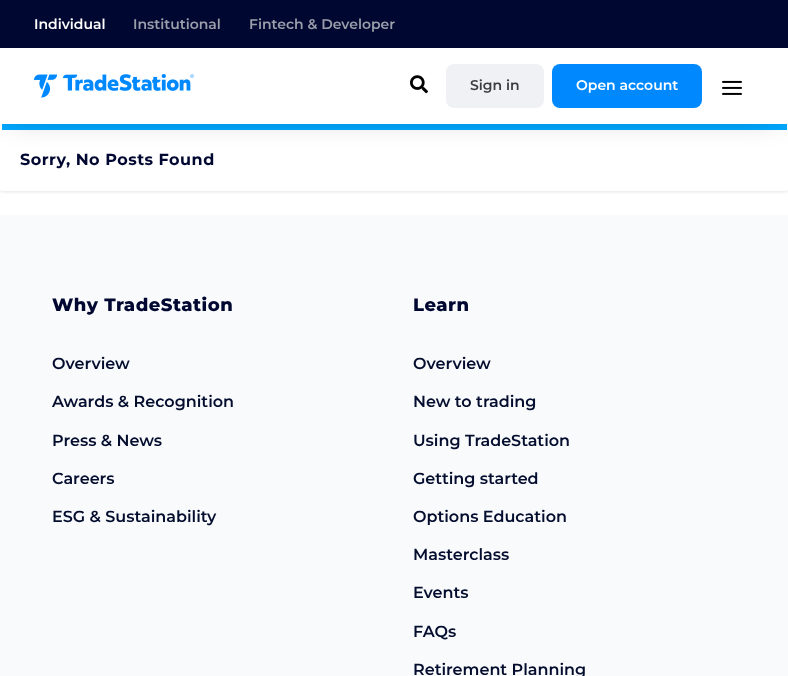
<svg xmlns="http://www.w3.org/2000/svg" width="788" height="676">
<style>
.a{font:600 14px Montserrat;fill:#fff}
.b{font:600 14px Montserrat;fill:#9b9eab}
.c{font:600 14px Montserrat;fill:#3c3c40}
.d{font:bold 16px Montserrat;letter-spacing:0.5px;fill:#000730}
.e{font:800 18px Montserrat;letter-spacing:0.5px;fill:#000730}
.f{font:600 16px Montserrat;fill:#040d2e}
</style>
<rect width="100%" height="100%" fill="#fff"/>
<rect fill="#0000001a" filter="blur(1.5px)" y="125" width="788" height="67" rx="3"/>
<rect fill="#fff" y="124" width="788" height="67" rx="3"/>
<path fill="#00a8ff" d="M2 124h785v6H2z"/>
<path fill="#0000004d" filter="blur(15.5px)" d="M11 61h766v54H11z"/>
<path fill="#000730" d="M0 0h788v48H0z"/>
<path fill="#fff" d="M0 48h788v76H0z"/>
<image href="1.png" x="34" y="74" width="160" height="24"/>
<image href="2.png" x="410" y="75" width="18" height="19"/>
<rect fill="#f0f1f5" x="446" y="64" width="98" height="44" rx="8"/>
<rect fill="#0089ff" x="552" y="64" width="150" height="44" rx="8"/>
<image href="3.png" x="722" y="80" width="20" height="15"/>
<path fill="#f9fafc" d="M0 215h788v461H0z"/>
<text class="a" x="34" y="29">Individual</text>
<text class="b" x="133" y="29">Institutional</text>
<text class="b" x="249" y="29">Fintech &amp; Developer</text>
<text class="c" x="470" y="90">Sign in</text>
<text class="a" x="576" y="90">Open account</text>
<text class="d" x="20" y="165">Sorry, No Posts Found</text>
<text class="e" x="52" y="311">Why TradeStation</text>
<text class="f" x="52" y="369">Overview</text>
<text class="f" x="52" y="407">Awards &amp; Recognition</text>
<text class="f" x="52" y="446">Press &amp; News</text>
<text class="f" x="52" y="484">Careers</text>
<text class="f" x="52" y="522">ESG &amp; Sustainability</text>
<text class="e" x="413" y="311">Learn</text>
<text class="f" x="413" y="369">Overview</text>
<text class="f" x="413" y="407">New to trading</text>
<text class="f" x="413" y="446">Using TradeStation</text>
<text class="f" x="413" y="484">Getting started</text>
<text class="f" x="413" y="522">Options Education</text>
<text class="f" x="413" y="560">Masterclass</text>
<text class="f" x="413" y="598">Events</text>
<text class="f" x="413" y="637">FAQs</text>
<text class="f" x="413" y="675">Retirement Planning</text>
</svg>
